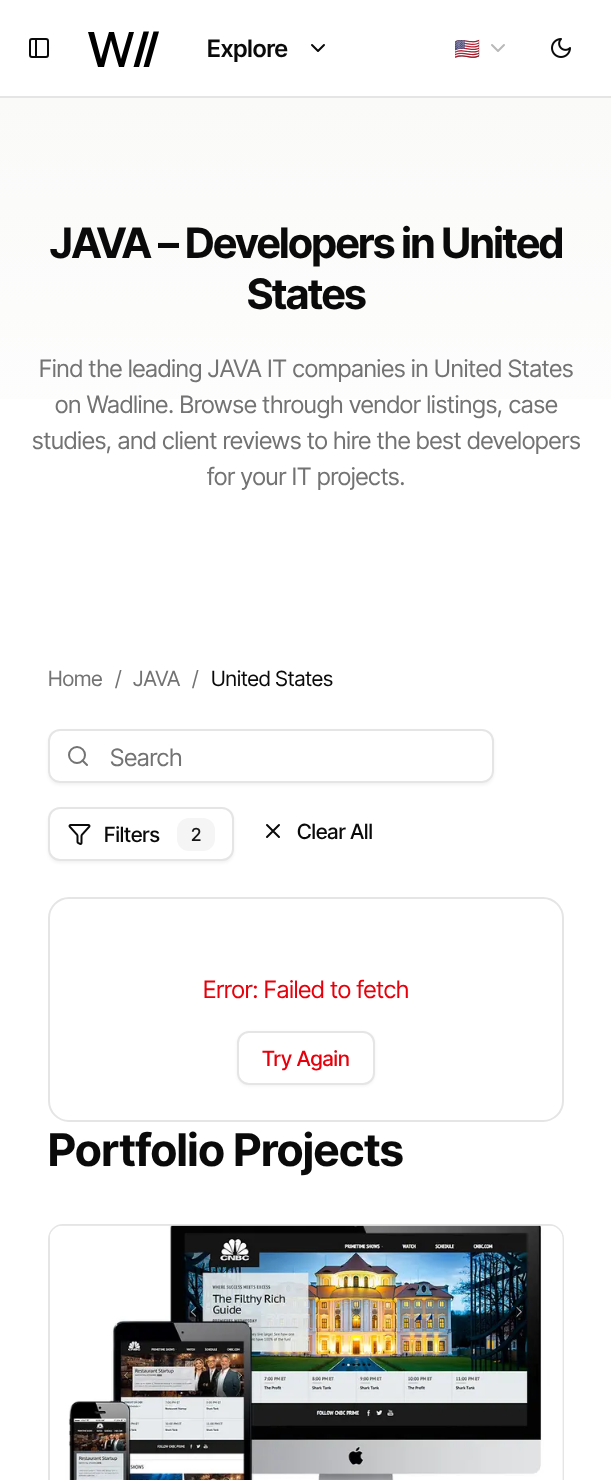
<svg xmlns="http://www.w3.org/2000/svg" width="611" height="1480">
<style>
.a{font:600 24px Inter Tight;fill:#0a0a0a}
.b{font:21px Noto Color Emoji;fill:#0a0a0a}
.c{font:bold 42px Inter Tight;letter-spacing:-1.05px;fill:#0a0a0a}
.d{font:24px Inter Tight;fill:#737373}
.e{font:21px Inter Tight;fill:#737373}
.f{font:21px Inter Tight;fill:#0a0a0a}
.g{font:500 21px Inter Tight;fill:#0a0a0a}
.h{font:500 18px Inter Tight;fill:#171717}
.i{font:24px Inter Tight;fill:#e7000b}
.j{font:500 21px Inter Tight;fill:#e7000b}
.k{font:bold 45px Inter Tight;fill:#0a0a0a}
</style>
<defs>
<linearGradient id="g1" gradientUnits="userSpaceOnUse" x1="306" y1="97" x2="306" y2="615"><stop offset="0" stop-color="#fafaf9"/><stop offset="1" stop-color="#fff"/></linearGradient>
<clipPath id="clip1"><path d="M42 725h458v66h-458zm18 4h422c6.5 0 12 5.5 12 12v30c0 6.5-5.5 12-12 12h-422c-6.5 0-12-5.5-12-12v-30c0-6.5 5.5-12 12-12z" clip-rule="evenodd"/></clipPath>
<clipPath id="clip2"><path d="M455 33h25v30H455z"/></clipPath>
</defs>
<rect width="100%" height="100%" fill="#fff"/>
<path fill="#e5e5e5" d="M0 96h611v2H0z"/>
<rect fill="none" stroke="#0a0a0a" stroke-width="2" x="30" y="39" width="18" height="18" rx="2"/>
<path fill="none" stroke="#0a0a0a" stroke-width="2" stroke-linecap="round" stroke-linejoin="round" d="M36 39v18"/>
<path fill="#000" d="M98 67l-10-35h6l7 27l8-27h5l7 27l8-27h5l-10 35h-5l-8-27l-7 27z"/>
<path fill="#000" d="M149 31.5h-5.5l-10 35.5h5.5z"/>
<path fill="#000" d="M159 31.5h-5.5l-10 35.5h5.5z"/>
<path fill="none" stroke="#0a0a0a" stroke-width="2" stroke-linecap="round" stroke-linejoin="round" d="M312 45l6 6l6-6"/>
<path fill="none" stroke="#b9b9b9" stroke-width="2" stroke-linecap="round" stroke-linejoin="round" d="M492 45l6 6l6-6"/>
<image href="1.png" x="551" y="38" width="20" height="20"/>
<path fill="url(#g1)" d="M0 98h611v301H0z"/>
<g clip-path="url(#clip1)">
<rect fill="#0000000d" filter="blur(1.5px)" x="48" y="731" width="446" height="54" rx="12"/>
</g>
<rect fill="none" stroke="#e5e5e5" stroke-width="2" x="49" y="730" width="444" height="52" rx="11"/>
<path fill="none" stroke="#737373" stroke-width="2" stroke-linecap="round" stroke-linejoin="round" d="M87 765l-4.5-4.5"/>
<circle fill="none" stroke="#737373" stroke-width="2" cx="77" cy="755" r="8"/>
<rect fill="#0000000d" filter="blur(1.5px)" x="48" y="809" width="186" height="54" rx="12"/>
<rect fill="#fff" stroke="#e5e5e5" stroke-width="2" x="49" y="808" width="184" height="52" rx="11"/>
<image href="2.png" x="68" y="824" width="23" height="21"/>
<rect fill="#f5f5f5" x="177" y="818" width="38" height="33" rx="12"/>
<path fill="none" stroke="#0a0a0a" stroke-width="2" stroke-linecap="round" stroke-linejoin="round" d="M279 825l-12 12m0-12l12 12"/>
<rect fill="none" stroke="#e5e5e5" stroke-width="2" x="49" y="898" width="514" height="223" rx="20"/>
<rect fill="#0000000d" filter="blur(1.5px)" x="237" y="1032" width="138" height="54" rx="12"/>
<rect fill="#fff" stroke="#e5e5e5" stroke-width="2" x="238" y="1032" width="136" height="52" rx="11"/>
<rect fill="none" stroke="#e5e5e5" stroke-width="2" x="49" y="1225" width="514" height="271" rx="14"/>
<path fill="#f5f5f5" d="M64 1226h485c7.5 0 14 6.5 14 14v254h-513v-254c0-7.5 6.5-14 14-14z"/>
<image href="3.png" x="50" y="1225" width="512" height="255"/>
<text class="a" x="207" y="57">Explore</text>
<g clip-path="url(#clip2)">
<text class="b" x="454" y="56">🇺🇸</text>
</g>
<text class="c" x="50" y="258">JAVA – Developers in United</text>
<text class="c" x="247" y="309">States</text>
<text class="d" x="39" y="377">Find the leading JAVA IT companies in United States</text>
<text class="d" x="55" y="413">on Wadline. Browse through vendor listings, case</text>
<text class="d" x="32" y="449">studies, and client reviews to hire the best developers</text>
<text class="d" x="207" y="485">for your IT projects.</text>
<text class="e" x="48" y="686">Home</text>
<text class="e" x="115" y="686">/</text>
<text class="e" x="133" y="686">JAVA</text>
<text class="e" x="192" y="686">/</text>
<text class="f" x="211" y="686">United States</text>
<text class="d" x="110" y="766">Search</text>
<text class="g" x="104" y="842">Filters</text>
<text class="h" x="191" y="841">2</text>
<text class="g" x="297" y="839">Clear All</text>
<text class="i" x="203" y="998">Error: Failed to fetch</text>
<text class="j" x="262" y="1066">Try Again</text>
<text class="k" x="48" y="1166">Portfolio Projects</text>
</svg>
